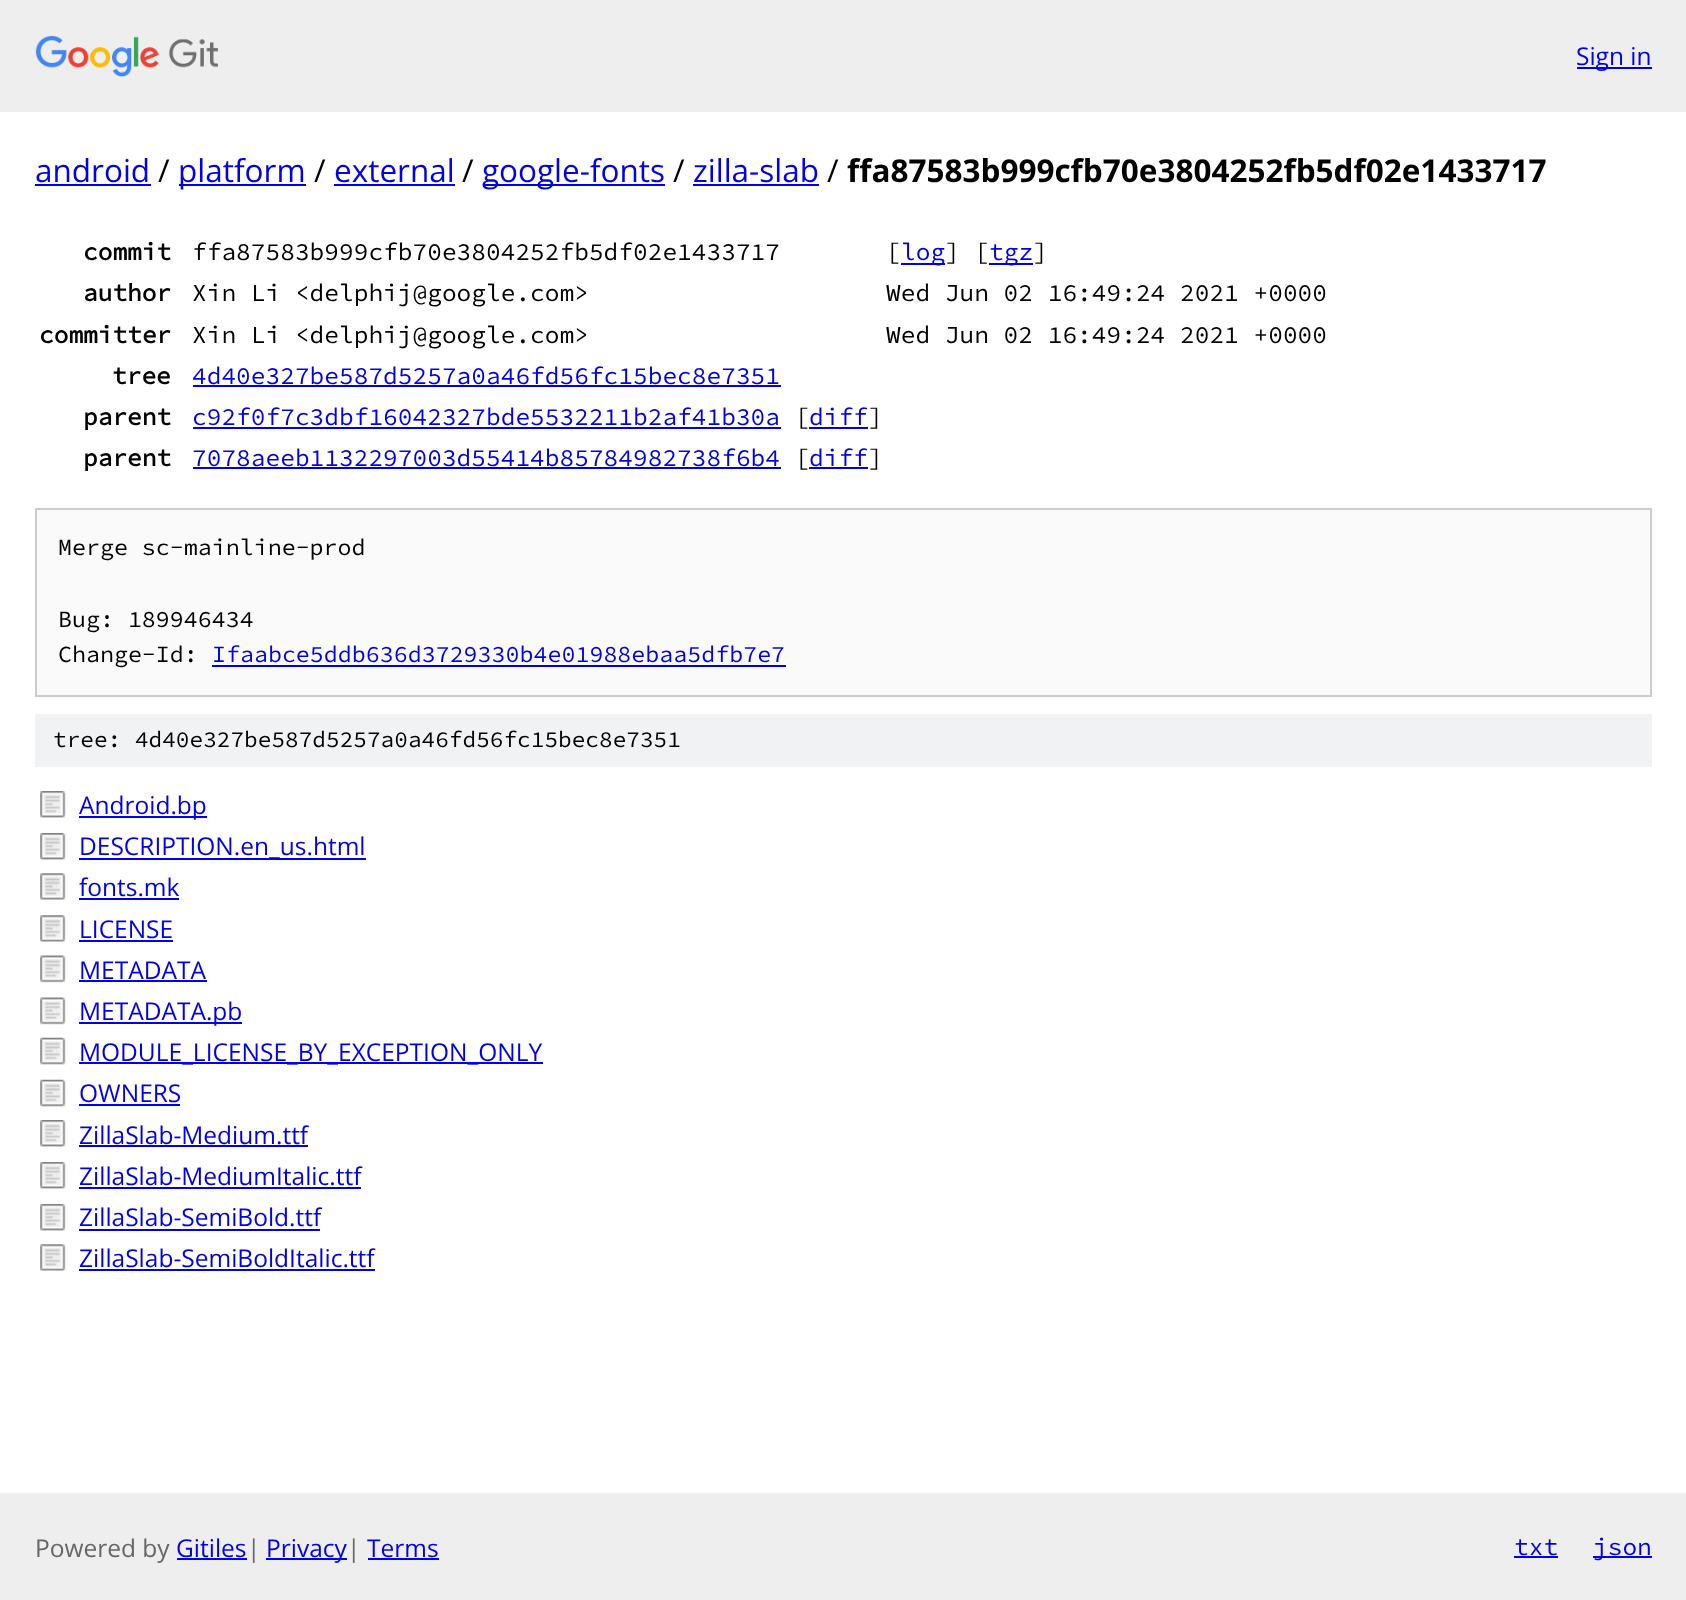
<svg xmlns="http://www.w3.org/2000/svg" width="1686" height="1600">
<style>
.a{font:24.5px Open Sans;fill:#00e}
.b{font:31.5px Open Sans;fill:#00e}
.c{font:31.5px Open Sans;fill:#000}
.d{font:bold 31.5px Open Sans;fill:#000}
.e{font:bold 24.5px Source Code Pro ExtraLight;fill:#000}
.f{font:200 24.5px Source Code Pro ExtraLight;fill:#000}
.g{font:200 24.5px Source Code Pro ExtraLight;fill:#00e}
.h{font:200 23.3px Source Code Pro ExtraLight;fill:#000}
.i{font:200 23.3px Source Code Pro ExtraLight;fill:#00e}
.j{font:200 22.75px Source Code Pro ExtraLight;fill:#000}
.k{font:24.5px Open Sans;fill:#666}
</style>
<rect width="100%" height="100%" fill="#fff"/>
<path fill="#eee" d="M0 0h1686v112H0z"/>
<image href="1.png" x="35" y="35" width="183" height="42"/>
<path fill="#00e" d="M1577 67h75v2H1577z"/>
<path fill="#00e" d="M35 184h116v2H35z"/>
<path fill="#00e" d="M179 184h127v2H179z"/>
<path fill="#00e" d="M334 184h121v2H334z"/>
<path fill="#00e" d="M483 184h182v2H483z"/>
<path fill="#00e" d="M693 184h126v2H693z"/>
<path fill="#00e" d="M901 263h44v2H901z"/>
<path fill="#00e" d="M989 263h44v2H989z"/>
<path fill="#00e" d="M193 385h588v2H193z"/>
<path fill="#00e" d="M193 427h588v2H193z"/>
<path fill="#00e" d="M809 427h59v2H809z"/>
<path fill="#00e" d="M193 467h588v2H193z"/>
<path fill="#00e" d="M809 467h59v2H809z"/>
<path fill="#fafafa" stroke="#ccc" stroke-width="2" d="M36 509h1615v187H36z"/>
<path fill="#00e" d="M212 665h574v2H212z"/>
<path fill="#f1f2f3" d="M35 714h1617v53H35z"/>
<image href="2.png" x="40" y="791" width="26" height="27"/>
<path fill="#00e" d="M79 816h128v2H79z"/>
<image href="2.png" x="40" y="833" width="26" height="27"/>
<path fill="#00e" d="M79 858h287v2H79z"/>
<image href="3.png" x="40" y="873" width="26" height="27"/>
<path fill="#00e" d="M79 898h100v2H79z"/>
<image href="3.png" x="40" y="915" width="26" height="27"/>
<path fill="#00e" d="M79 940h94v2H79z"/>
<image href="4.png" x="40" y="955" width="26" height="28"/>
<path fill="#00e" d="M79 980h128v2H79z"/>
<image href="4.png" x="40" y="997" width="26" height="28"/>
<path fill="#00e" d="M79 1022h163v2H79z"/>
<image href="5.png" x="40" y="1037" width="26" height="28"/>
<path fill="#00e" d="M79 1062h464v2H79z"/>
<image href="5.png" x="40" y="1079" width="26" height="28"/>
<path fill="#00e" d="M79 1104h101v2H79z"/>
<image href="2.png" x="40" y="1120" width="26" height="27"/>
<path fill="#00e" d="M79 1145h229v2H79z"/>
<image href="2.png" x="40" y="1162" width="26" height="27"/>
<path fill="#00e" d="M79 1187h282v2H79z"/>
<image href="2.png" x="40" y="1204" width="26" height="27"/>
<path fill="#00e" d="M79 1229h241v2H79z"/>
<image href="3.png" x="40" y="1244" width="26" height="27"/>
<path fill="#00e" d="M79 1269h296v2H79z"/>
<path fill="#eee" d="M0 1493h1686v107H0z"/>
<path fill="#00e" d="M177 1558h70v2H177z"/>
<path fill="#00e" d="M266 1558h81v2H266z"/>
<path fill="#00e" d="M368 1558h71v2H368z"/>
<path fill="#00e" d="M1514 1556h44v2H1514z"/>
<path fill="#00e" d="M1593 1556h59v2H1593z"/>
<text class="a" x="1576" y="65">Sign in</text>
<text class="b" x="35" y="182">android</text>
<text class="c" x="158" y="182">/</text>
<text class="b" x="178" y="182">platform</text>
<text class="c" x="314" y="182">/</text>
<text class="b" x="334" y="182">external</text>
<text class="c" x="462" y="182">/</text>
<text class="b" x="482" y="182">google-fonts</text>
<text class="c" x="673" y="182">/</text>
<text class="b" x="693" y="182">zilla-slab</text>
<text class="c" x="827" y="182">/</text>
<text class="d" x="847" y="182">ffa87583b999cfb70e3804252fb5df02e1433717</text>
<text class="e" x="83" y="260">commit</text>
<text class="f" x="192" y="260">ffa87583b999cfb70e3804252fb5df02e1433717</text>
<text class="f" x="886" y="260">[</text>
<text class="g" x="901" y="260">log</text>
<text class="f" x="945" y="260">] [</text>
<text class="g" x="989" y="260">tgz</text>
<text class="f" x="1033" y="260">]</text>
<text class="e" x="83" y="301">author</text>
<text class="f" x="192" y="301">Xin Li &lt;delphij@google.com&gt;</text>
<text class="f" x="886" y="301">Wed Jun 02 16:49:24 2021 +0000</text>
<text class="e" x="39" y="343">committer</text>
<text class="f" x="192" y="343">Xin Li &lt;delphij@google.com&gt;</text>
<text class="f" x="886" y="343">Wed Jun 02 16:49:24 2021 +0000</text>
<text class="e" x="112" y="384">tree</text>
<text class="g" x="192" y="384">4d40e327be587d5257a0a46fd56fc15bec8e7351</text>
<text class="e" x="83" y="425">parent</text>
<text class="g" x="192" y="425">c92f0f7c3dbf16042327bde5532211b2af41b30a</text>
<text class="f" x="795" y="425">[</text>
<text class="g" x="809" y="425">diff</text>
<text class="f" x="868" y="425">]</text>
<text class="e" x="83" y="466">parent</text>
<text class="g" x="192" y="466">7078aeeb1132297003d55414b85784982738f6b4</text>
<text class="f" x="795" y="466">[</text>
<text class="g" x="809" y="466">diff</text>
<text class="f" x="868" y="466">]</text>
<text class="h" x="58" y="555">Merge sc-mainline-prod</text>
<text class="h" x="58" y="627">Bug: 189946434</text>
<text class="h" x="58" y="662">Change-Id:</text>
<text class="i" x="212" y="662">Ifaabce5ddb636d3729330b4e01988ebaa5dfb7e7</text>
<text class="j" x="53" y="747">tree: 4d40e327be587d5257a0a46fd56fc15bec8e7351</text>
<text class="a" x="79" y="814">Android.bp</text>
<text class="a" x="79" y="855">DESCRIPTION.en_us.html</text>
<text class="a" x="79" y="896">fonts.mk</text>
<text class="a" x="79" y="938">LICENSE</text>
<text class="a" x="79" y="979">METADATA</text>
<text class="a" x="79" y="1020">METADATA.pb</text>
<text class="a" x="79" y="1061">MODULE_LICENSE_BY_EXCEPTION_ONLY</text>
<text class="a" x="79" y="1102">OWNERS</text>
<text class="a" x="79" y="1144">ZillaSlab-Medium.ttf</text>
<text class="a" x="79" y="1185">ZillaSlab-MediumItalic.ttf</text>
<text class="a" x="79" y="1226">ZillaSlab-SemiBold.ttf</text>
<text class="a" x="79" y="1267">ZillaSlab-SemiBoldItalic.ttf</text>
<text class="k" x="35" y="1557">Powered by</text>
<text class="a" x="176" y="1557">Gitiles</text>
<text class="k" x="247" y="1557">|</text>
<text class="a" x="266" y="1557">Privacy</text>
<text class="k" x="347" y="1557">|</text>
<text class="a" x="367" y="1557">Terms</text>
<text class="g" x="1514" y="1555">txt</text>
<text class="g" x="1593" y="1555">json</text>
</svg>
